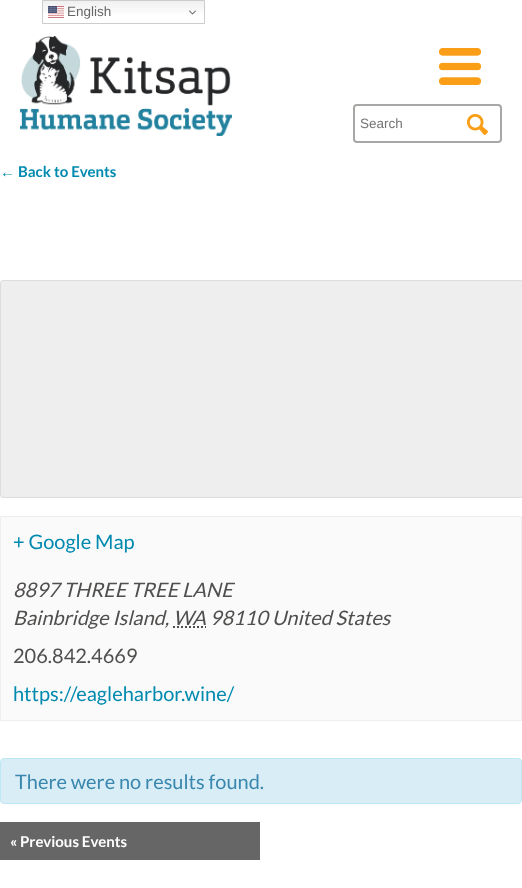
<svg xmlns="http://www.w3.org/2000/svg" width="522" height="888">
<style>
.a{font:13.5px Liberation Sans;fill:#666}
.b{font:13.5px Liberation Sans;fill:#757575}
.c{font:bold 15px Liberation Sans;fill:#008ab0}
.d{font:bold 15px Lato;fill:#008ab0}
.e{font:20px Lato;fill:#008ab0}
.f{font:italic 20px Lato;fill:#514f4e}
.g{font:20px Lato;fill:#514f4e}
.h{font:20px Lato;fill:#3a87ad}
.i{font:bold 15px Lato;fill:#fff}
</style>
<defs>
<linearGradient id="g1" gradientUnits="userSpaceOnUse" x1="124" y1="0" x2="124" y2="24"><stop offset="0" stop-color="#efefef"/><stop offset="0.7" stop-color="#fff"/></linearGradient>
</defs>
<rect width="100%" height="100%" fill="#fff"/>
<path fill="url(#g1)" d="M43 1h161v13H43z"/>
<path fill="none" stroke="#ccc" d="M42.5 0.5h162v23H42.5z"/>
<image href="1.png" x="48" y="6" width="16" height="12"/>
<image href="2.png" x="189" y="10" width="7" height="5"/>
<image href="3.png" x="20" y="36" width="212" height="100"/>
<image href="4.png" x="439" y="48" width="42" height="37"/>
<rect fill="none" stroke="#a7a7a6" stroke-width="2" x="354" y="105" width="147" height="37" rx="3"/>
<image href="5.png" x="467" y="114" width="21" height="21"/>
<rect fill="#eee" stroke="#ddd" x="0.5" y="280.5" width="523" height="217" rx="2.5"/>
<path fill="#fafafa" stroke="#eee" d="M0.5 516.5h521v204H0.5z"/>
<path fill="none" stroke="#514f4e" stroke-width="2" stroke-dasharray="2 2" d="M173 627h33"/>
<rect fill="#d9edf7" stroke="#bce8f1" x="0.5" y="758.5" width="521" height="45" rx="3.5"/>
<path fill="#666" d="M0 822h260v38H0z"/>
<text class="a" x="67" y="16">English</text>
<text class="b" x="360" y="128">Search</text>
<text class="c" x="0" y="177">←</text>
<text class="d" x="18" y="177">Back to Events</text>
<text class="e" x="13" y="549">+ Google Map</text>
<text class="f" x="13" y="597">8897 THREE TREE LANE</text>
<text class="f" x="13" y="625">Bainbridge Island, WA 98110 United States</text>
<text class="g" x="13" y="663">206.842.4669</text>
<text class="e" x="13" y="701">https://eagleharbor.wine/</text>
<text class="h" x="15" y="789">There were no results found.</text>
<text class="i" x="10" y="847">«</text>
<text class="i" x="20" y="847">Previous Events</text>
</svg>
